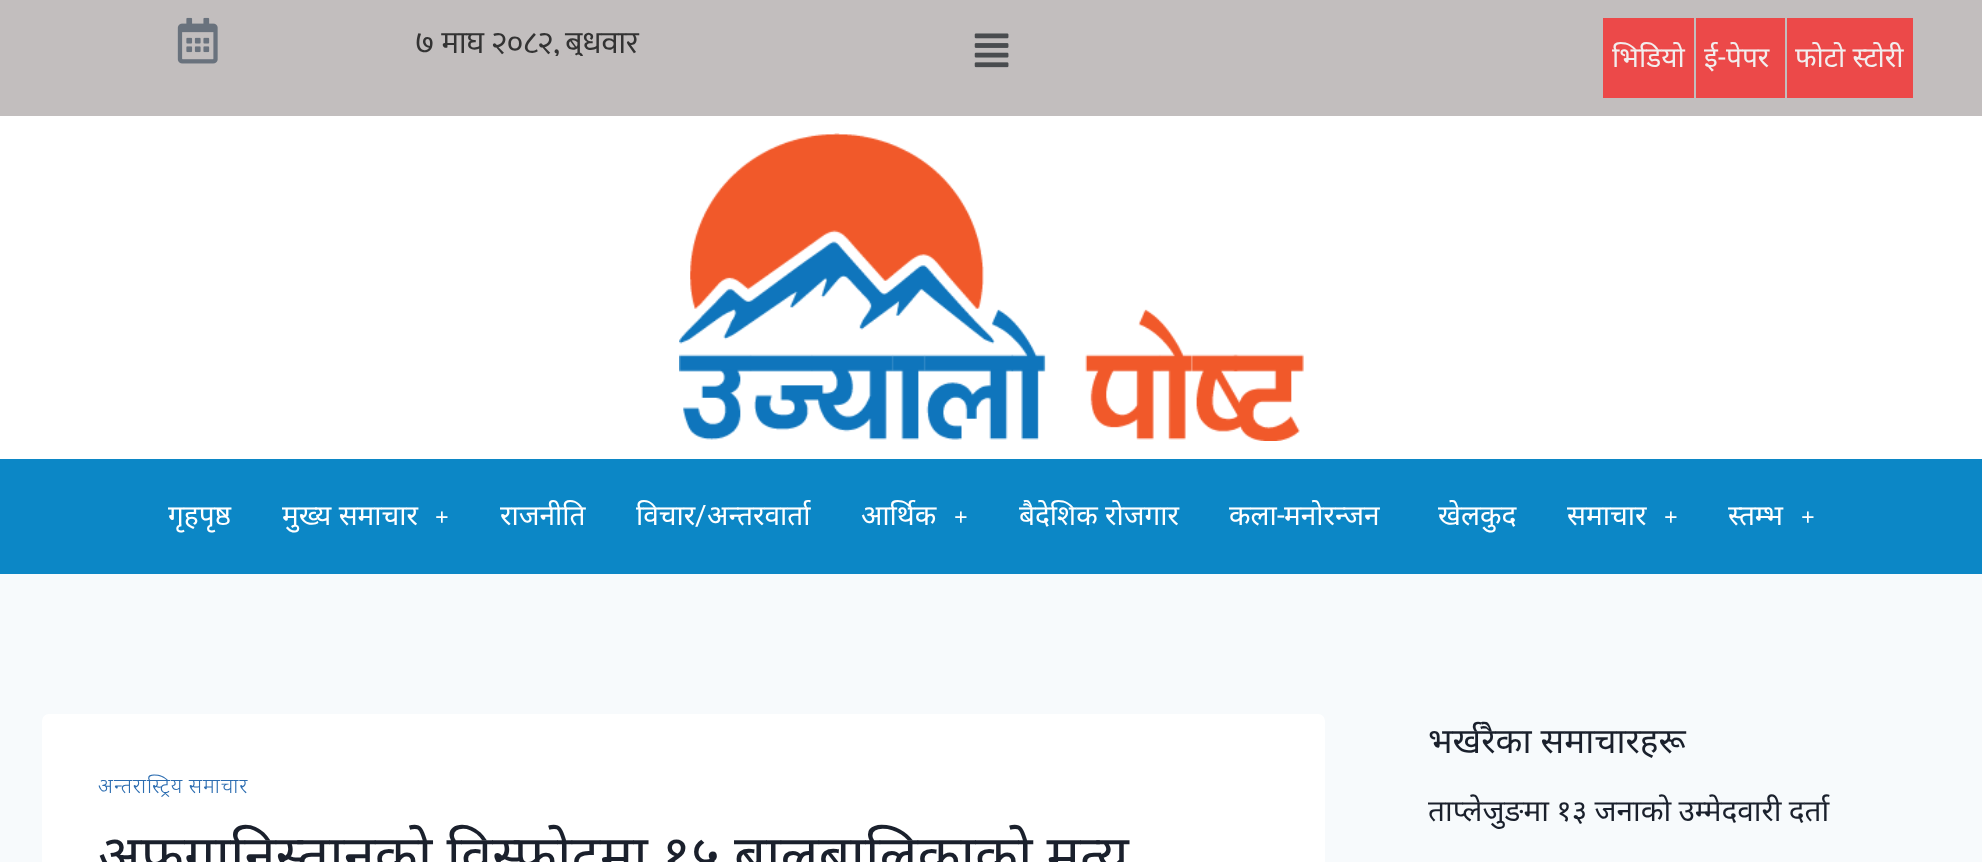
<svg xmlns="http://www.w3.org/2000/svg" width="1982" height="862">
<style>
.a{font:28px Noto Sans;fill:#f2eeee}
.b{font:28px Roboto;fill:#f2eeee}
.c{font:28px Noto Sans;fill:#fff}
.d{font:bold 24px Liberation Serif;fill:#fff}
.e{font:28px Roboto;fill:#fff}
.f{font:300 20.75px Noto Sans;letter-spacing:1px;fill:#2b6cb0}
.g{font:56px Noto Sans;fill:#1a202c}
.h{font:35px Noto Sans;fill:#1a202c}
.i{font:29.75px Noto Sans;fill:#1a202c}
</style>
<rect width="100%" height="100%" fill="#f7fafc"/>
<path fill="#fff" d="M0 116h1982v343H0z"/>
<path fill="#c2bebe" d="M0 0h1982v116H0z"/>
<image href="1.png" x="177" y="17" width="41" height="47"/>
<image href="2.png" x="416" y="32" width="224" height="24"/>
<image href="3.png" x="974" y="33" width="35" height="35"/>
<path fill="#ec4949" d="M1603 18h91v80H1603z"/>
<path fill="#ec4949" d="M1696 18h89v80H1696z"/>
<path fill="#ec4949" d="M1787 18h126v80H1787z"/>
<image href="4.png" x="679" y="133" width="625" height="308"/>
<path fill="#0c87c6" d="M0 459h1982v115H0z"/>
<rect fill="#fff" x="42" y="714" width="1283" height="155" rx="7"/>
<text class="a" x="1612" y="67">भिडियो</text>
<text class="a" x="1704" y="67">ई</text>
<text class="b" x="1718" y="67">-</text>
<text class="a" x="1726" y="67">पेपर</text>
<text class="a" x="1795" y="67">फोटो स्टोरी</text>
<text class="c" x="168" y="525">गृहपृष्ठ</text>
<text class="c" x="282" y="525">मुख्य समाचार</text>
<text class="d" x="435" y="525">+</text>
<text class="c" x="500" y="525">राजनीति</text>
<text class="c" x="636" y="525">विचार</text>
<text class="e" x="695" y="525">/</text>
<text class="c" x="707" y="525">अन्तरवार्ता</text>
<text class="c" x="861" y="525">आर्थिक</text>
<text class="d" x="954" y="525">+</text>
<text class="c" x="1019" y="525">बैदेशिक रोजगार</text>
<text class="c" x="1229" y="525">कला</text>
<text class="e" x="1277" y="525">-</text>
<text class="c" x="1284" y="525">मनोरन्जन</text>
<text class="c" x="1438" y="525">खेलकुद</text>
<text class="c" x="1567" y="525">समाचार</text>
<text class="d" x="1664" y="525">+</text>
<text class="c" x="1728" y="525">स्तम्भ</text>
<text class="d" x="1801" y="525">+</text>
<text class="f" x="98" y="793" word-spacing="-1">अन्तरास्ट्रिय समाचार</text>
<text class="g" x="98" y="875" word-spacing="-0.5">अफगानिस्तानको विस्फोटमा १५ बालबालिकाको मृत्यु</text>
<text class="h" x="1428" y="753">भर्खरैका समाचारहरू</text>
<text class="i" x="1428" y="821" word-spacing="-0.5">ताप्लेजुङमा १३ जनाको उम्मेदवारी दर्ता</text>
</svg>
